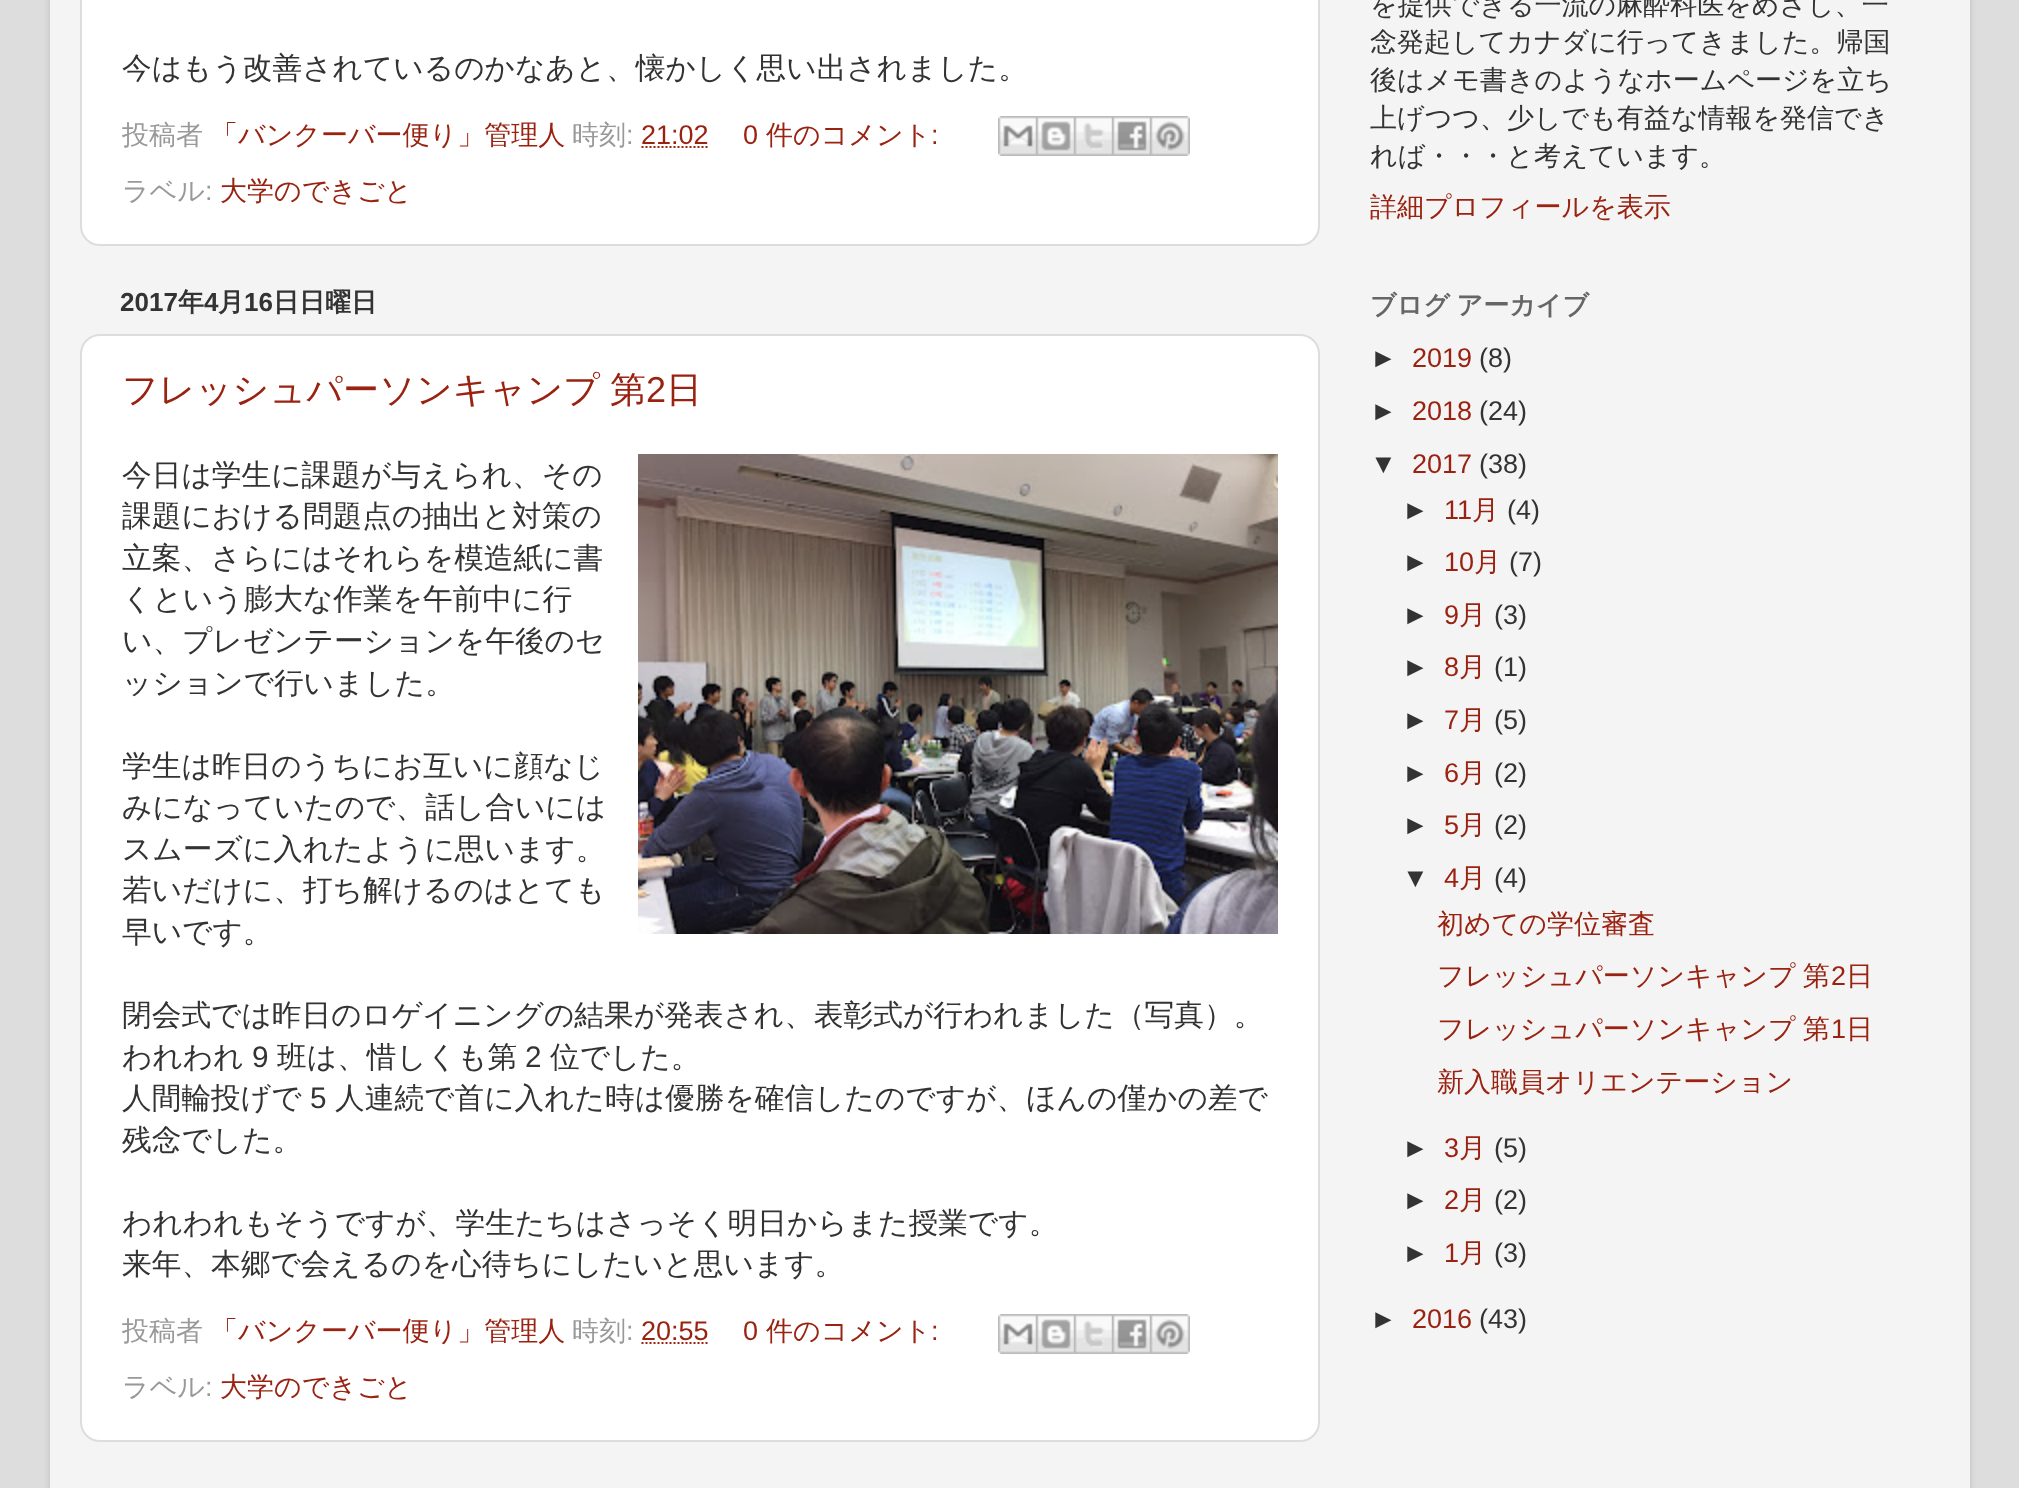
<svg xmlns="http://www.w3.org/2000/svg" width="2019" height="1488">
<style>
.a{font:500 29.7px WenQuanYi Zen Hei;fill:#333}
.b{font:500 27px WenQuanYi Zen Hei;fill:#999}
.c{font:500 27px WenQuanYi Zen Hei;fill:#921}
.d{font:27px Liberation Sans;fill:#999}
.e{font:27px Liberation Sans;fill:#921}
.f{font:bold 26px Liberation Sans;fill:#333}
.g{font:bold 26px WenQuanYi Zen Hei;fill:#333}
.h{font:500 36px WenQuanYi Zen Hei;fill:#921}
.i{font:36px Liberation Sans;fill:#921}
.j{font:29.7px Liberation Sans;fill:#333}
.k{font:500 27px WenQuanYi Zen Hei;fill:#333}
.l{font:bold 26px WenQuanYi Zen Hei;fill:#666}
.m{font:27px Liberation Sans;fill:#333}
</style>
<rect width="100%" height="100%" fill="#ddd"/>
<rect fill="#00000026" filter="blur(3px)" x="50" y="-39" width="1920" height="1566" rx="30"/>
<path fill="#f4f4f4" d="M50 0h1920v1488H50z"/>
<rect fill="#fff" stroke="#ddd" stroke-width="2" x="81" y="-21" width="1238" height="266" rx="19"/>
<path fill="none" stroke="#921" stroke-width="2" stroke-dasharray="2 2" d="M641.5 147h67.5"/>
<image href="1.png" x="998" y="116" width="38" height="40"/>
<image href="2.png" x="1036" y="116" width="38" height="40"/>
<image href="3.png" x="1074" y="116" width="38" height="40"/>
<image href="4.png" x="1112" y="116" width="38" height="40"/>
<image href="5.png" x="1150" y="116" width="40" height="40"/>
<rect fill="#fff" stroke="#ddd" stroke-width="2" x="81" y="335" width="1238" height="1106" rx="19"/>
<image href="6.png" x="638" y="454" width="640" height="480"/>
<path fill="none" stroke="#921" stroke-width="2" stroke-dasharray="2 2" d="M641.5 1343h67.5"/>
<image href="1.png" x="998" y="1314" width="38" height="40"/>
<image href="2.png" x="1036" y="1314" width="38" height="40"/>
<image href="3.png" x="1074" y="1314" width="38" height="40"/>
<image href="4.png" x="1112" y="1314" width="38" height="40"/>
<image href="5.png" x="1150" y="1314" width="40" height="40"/>
<text class="a" x="122" y="78">今はもう改善されているのかなあと、懐かしく思い出されました。</text>
<text class="b" x="122" y="144">投稿者</text>
<text class="c" x="211" y="144">「バンクーバー便り」管理人</text>
<text class="b" x="572" y="144">時刻</text>
<text class="d" x="626" y="144">:</text>
<text class="e" x="641" y="144">21:02</text>
<text class="e" x="743" y="144">0</text>
<text class="c" x="766" y="144">件のコメント</text>
<text class="e" x="931" y="144">:</text>
<text class="b" x="122" y="200">ラベル</text>
<text class="d" x="205" y="200">:</text>
<text class="c" x="220" y="200">大学のできごと</text>
<text class="f" x="120" y="311">2017</text>
<text class="g" x="178" y="311">年</text>
<text class="f" x="204" y="311">4</text>
<text class="g" x="218" y="311">月</text>
<text class="f" x="244" y="311">16</text>
<text class="g" x="273" y="311">日日曜日</text>
<text class="h" x="122" y="402" word-spacing="-1">フレッシュパーソンキャンプ 第</text>
<text class="i" x="646" y="402">2</text>
<text class="h" x="666" y="402">日</text>
<text class="a" x="122" y="485">今日は学生に課題が与えられ、その</text>
<text class="a" x="122" y="526">課題における問題点の抽出と対策の</text>
<text class="a" x="122" y="568">立案、さらにはそれらを模造紙に書</text>
<text class="a" x="122" y="609">くという膨大な作業を午前中に行</text>
<text class="a" x="122" y="651">い、プレゼンテーションを午後のセ</text>
<text class="a" x="122" y="693">ッションで行いました。</text>
<text class="a" x="122" y="776">学生は昨日のうちにお互いに顔なじ</text>
<text class="a" x="122" y="817">みになっていたので、話し合いには</text>
<text class="a" x="122" y="859">スムーズに入れたように思います。</text>
<text class="a" x="122" y="900">若いだけに、打ち解けるのはとても</text>
<text class="a" x="122" y="942">早いです。</text>
<text class="a" x="122" y="1025">閉会式では昨日のロゲイニングの結果が発表され、表彰式が行われました（写真）。</text>
<text class="a" x="122" y="1067">われわれ</text>
<text class="j" x="252" y="1067">9</text>
<text class="a" x="277" y="1067">班は、惜しくも第</text>
<text class="j" x="525" y="1067">2</text>
<text class="a" x="550" y="1067">位でした。</text>
<text class="a" x="122" y="1108">人間輪投げで</text>
<text class="j" x="310" y="1108">5</text>
<text class="a" x="335" y="1108">人連続で首に入れた時は優勝を確信したのですが、ほんの僅かの差で</text>
<text class="a" x="122" y="1150">残念でした。</text>
<text class="a" x="122" y="1233">われわれもそうですが、学生たちはさっそく明日からまた授業です。</text>
<text class="a" x="122" y="1274">来年、本郷で会えるのを心待ちにしたいと思います。</text>
<text class="b" x="122" y="1340">投稿者</text>
<text class="c" x="211" y="1340">「バンクーバー便り」管理人</text>
<text class="b" x="572" y="1340">時刻</text>
<text class="d" x="626" y="1340">:</text>
<text class="e" x="641" y="1340">20:55</text>
<text class="e" x="743" y="1340">0</text>
<text class="c" x="766" y="1340">件のコメント</text>
<text class="e" x="931" y="1340">:</text>
<text class="b" x="122" y="1396">ラベル</text>
<text class="d" x="205" y="1396">:</text>
<text class="c" x="220" y="1396">大学のできごと</text>
<text class="k" x="1370" y="14">を提供できる一流の麻酔科医をめざし、一</text>
<text class="k" x="1370" y="51">念発起してカナダに行ってきました。帰国</text>
<text class="k" x="1370" y="89">後はメモ書きのようなホームページを立ち</text>
<text class="k" x="1370" y="127">上げつつ、少しでも有益な情報を発信でき</text>
<text class="k" x="1370" y="165">れば・・・と考えています。</text>
<text class="c" x="1370" y="216">詳細プロフィールを表示</text>
<text class="l" x="1370" y="314" word-spacing="-1">ブログ アーカイブ</text>
<text class="m" x="1370" y="367">►</text>
<text class="e" x="1412" y="367">2019</text>
<text class="m" x="1479" y="367">(8)</text>
<text class="m" x="1370" y="420">►</text>
<text class="e" x="1412" y="420">2018</text>
<text class="m" x="1479" y="420">(24)</text>
<text class="m" x="1370" y="473">▼</text>
<text class="e" x="1412" y="473">2017</text>
<text class="m" x="1479" y="473">(38)</text>
<text class="m" x="1402" y="519">►</text>
<text class="e" x="1444" y="519">11</text>
<text class="c" x="1472" y="519">月</text>
<text class="m" x="1507" y="519">(4)</text>
<text class="m" x="1402" y="571">►</text>
<text class="e" x="1444" y="571">10</text>
<text class="c" x="1474" y="571">月</text>
<text class="m" x="1509" y="571">(7)</text>
<text class="m" x="1402" y="624">►</text>
<text class="e" x="1444" y="624">9</text>
<text class="c" x="1459" y="624">月</text>
<text class="m" x="1494" y="624">(3)</text>
<text class="m" x="1402" y="676">►</text>
<text class="e" x="1444" y="676">8</text>
<text class="c" x="1459" y="676">月</text>
<text class="m" x="1494" y="676">(1)</text>
<text class="m" x="1402" y="729">►</text>
<text class="e" x="1444" y="729">7</text>
<text class="c" x="1459" y="729">月</text>
<text class="m" x="1494" y="729">(5)</text>
<text class="m" x="1402" y="782">►</text>
<text class="e" x="1444" y="782">6</text>
<text class="c" x="1459" y="782">月</text>
<text class="m" x="1494" y="782">(2)</text>
<text class="m" x="1402" y="834">►</text>
<text class="e" x="1444" y="834">5</text>
<text class="c" x="1459" y="834">月</text>
<text class="m" x="1494" y="834">(2)</text>
<text class="m" x="1402" y="887">▼</text>
<text class="e" x="1444" y="887">4</text>
<text class="c" x="1459" y="887">月</text>
<text class="m" x="1494" y="887">(4)</text>
<text class="c" x="1437" y="933">初めての学位審査</text>
<text class="c" x="1437" y="985" word-spacing="-1">フレッシュパーソンキャンプ 第</text>
<text class="e" x="1831" y="985">2</text>
<text class="c" x="1846" y="985">日</text>
<text class="c" x="1437" y="1038" word-spacing="-1">フレッシュパーソンキャンプ 第</text>
<text class="e" x="1831" y="1038">1</text>
<text class="c" x="1846" y="1038">日</text>
<text class="c" x="1437" y="1091">新入職員オリエンテーション</text>
<text class="m" x="1402" y="1157">►</text>
<text class="e" x="1444" y="1157">3</text>
<text class="c" x="1459" y="1157">月</text>
<text class="m" x="1494" y="1157">(5)</text>
<text class="m" x="1402" y="1209">►</text>
<text class="e" x="1444" y="1209">2</text>
<text class="c" x="1459" y="1209">月</text>
<text class="m" x="1494" y="1209">(2)</text>
<text class="m" x="1402" y="1262">►</text>
<text class="e" x="1444" y="1262">1</text>
<text class="c" x="1459" y="1262">月</text>
<text class="m" x="1494" y="1262">(3)</text>
<text class="m" x="1370" y="1328">►</text>
<text class="e" x="1412" y="1328">2016</text>
<text class="m" x="1479" y="1328">(43)</text>
</svg>
